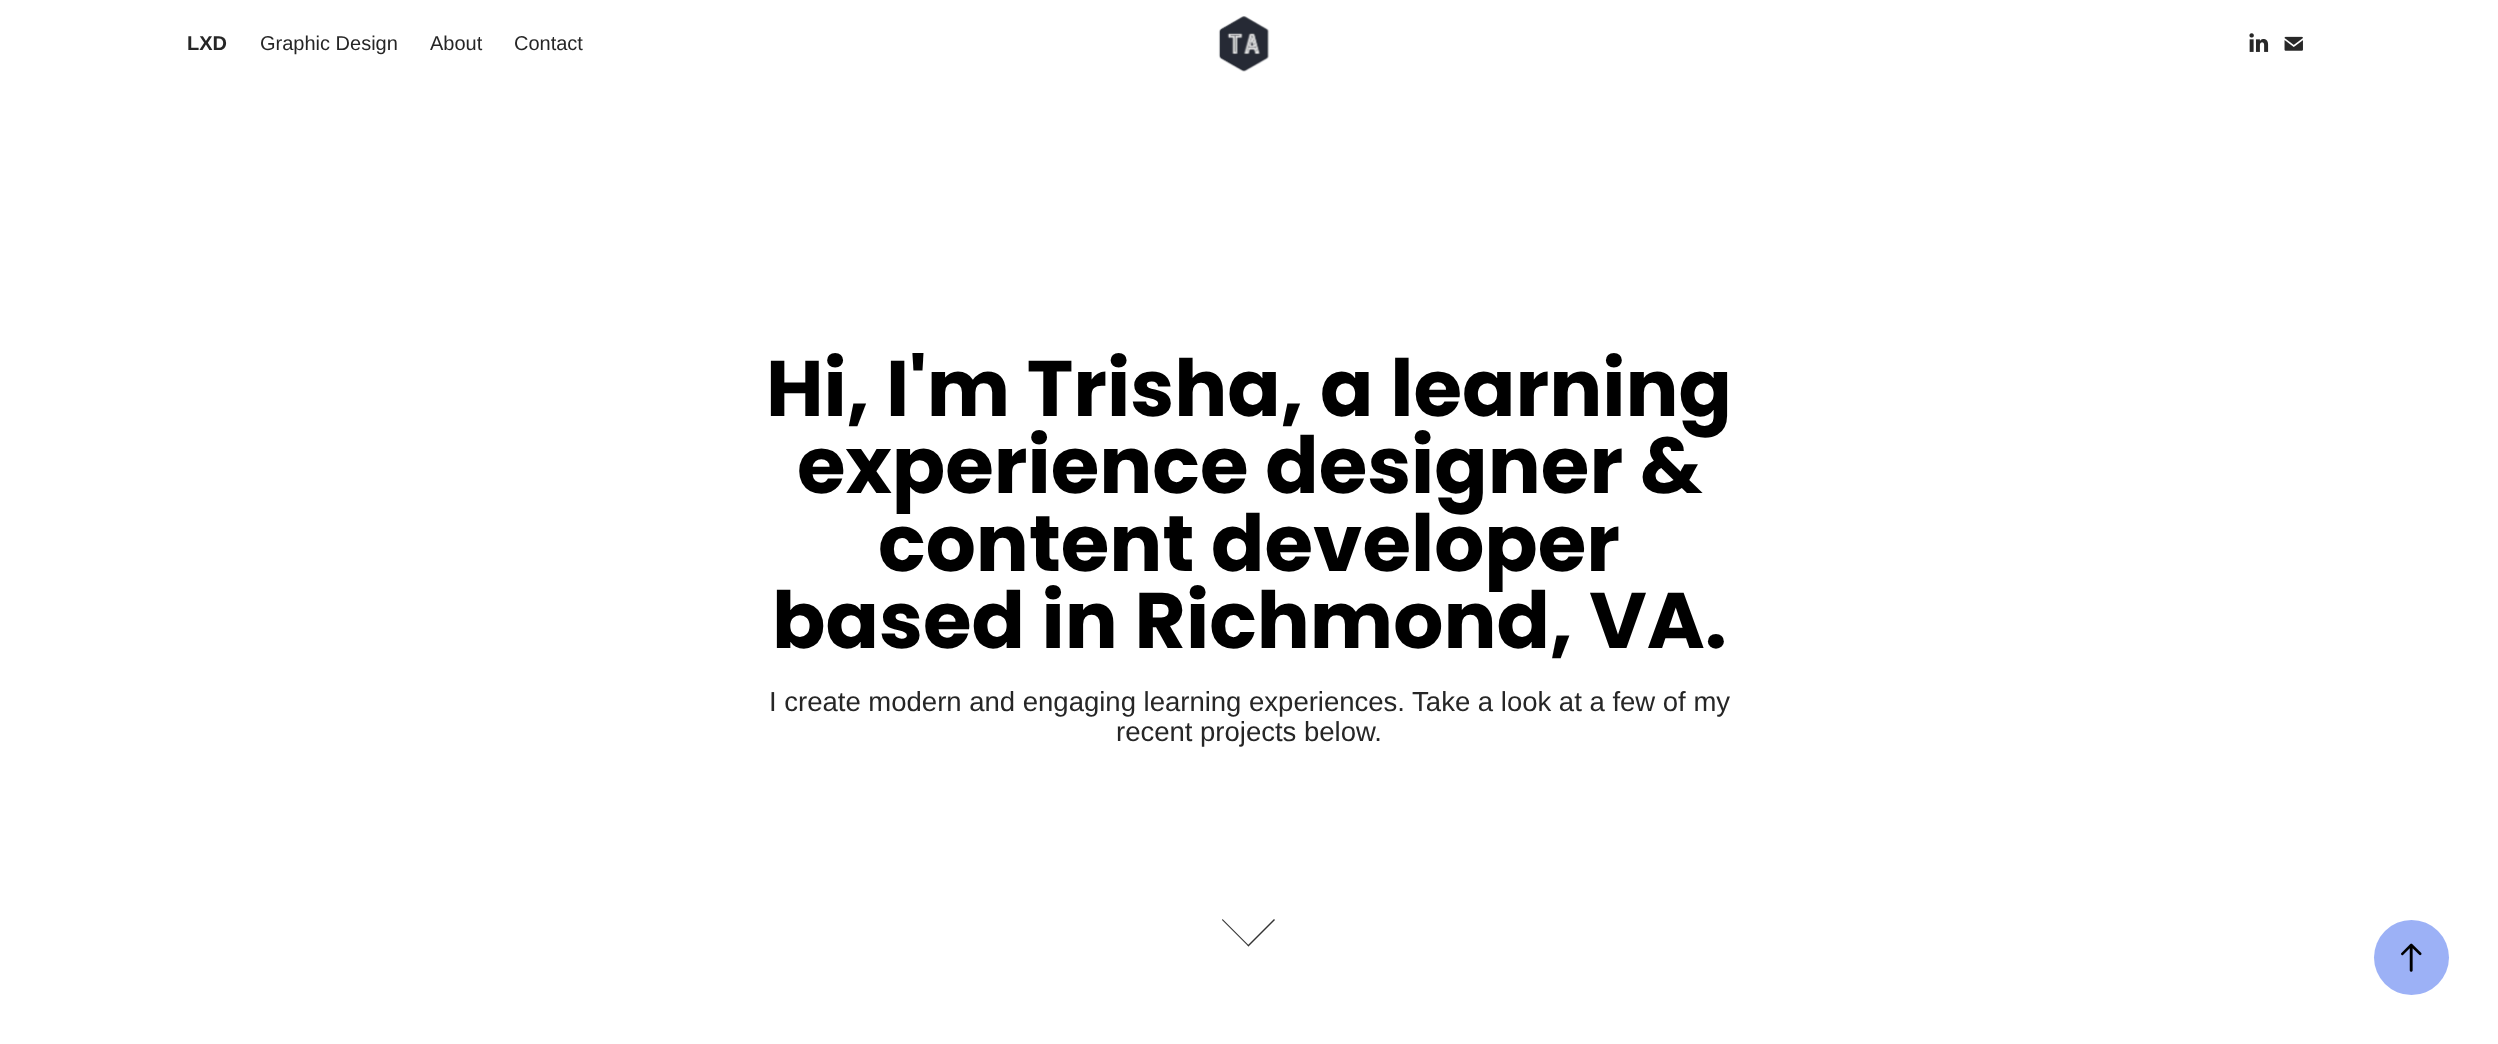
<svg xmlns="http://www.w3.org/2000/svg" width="2498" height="1044">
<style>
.a{font:bold 20px Liberation Sans;fill:#262626}
.b{font:20px Liberation Sans;fill:#262626}
.c{font:bold 78.75px Poppins;fill:#000}
.d{font:27.5px Liberation Sans;fill:#262626}
</style>
<rect width="100%" height="100%" fill="#fff"/>
<image href="1.png" x="1218" y="16" width="52" height="56"/>
<image href="2.png" x="2249" y="33" width="20" height="19"/>
<image href="3.png" x="2284" y="36" width="19" height="15"/>
<path fill="#333" d="M1274 919l1 1l-26.5 26.5l-1-1z"/>
<path fill="#333" d="M1222.5 919l26.5 26.5l-.5 1l-26.5-26.5z"/>
<circle fill="#9cb1f6" cx="2411.5" cy="957.5" r="37.5"/>
<image href="4.png" x="2401" y="943" width="21" height="29"/>
<text class="a" x="187" y="50">LXD</text>
<text class="b" x="260" y="50">Graphic Design</text>
<text class="b" x="430" y="50">About</text>
<text class="b" x="514" y="50">Contact</text>
<text class="c" x="766" y="416">Hi, I'm Trisha, a learning</text>
<text class="c" x="797" y="493">experience designer &amp;</text>
<text class="c" x="878" y="571">content developer</text>
<text class="c" x="772" y="648">based in Richmond, VA.</text>
<text class="d" x="769" y="711">I create modern and engaging learning experiences. Take a look at a few of my</text>
<text class="d" x="1116" y="741">recent projects below.</text>
</svg>
